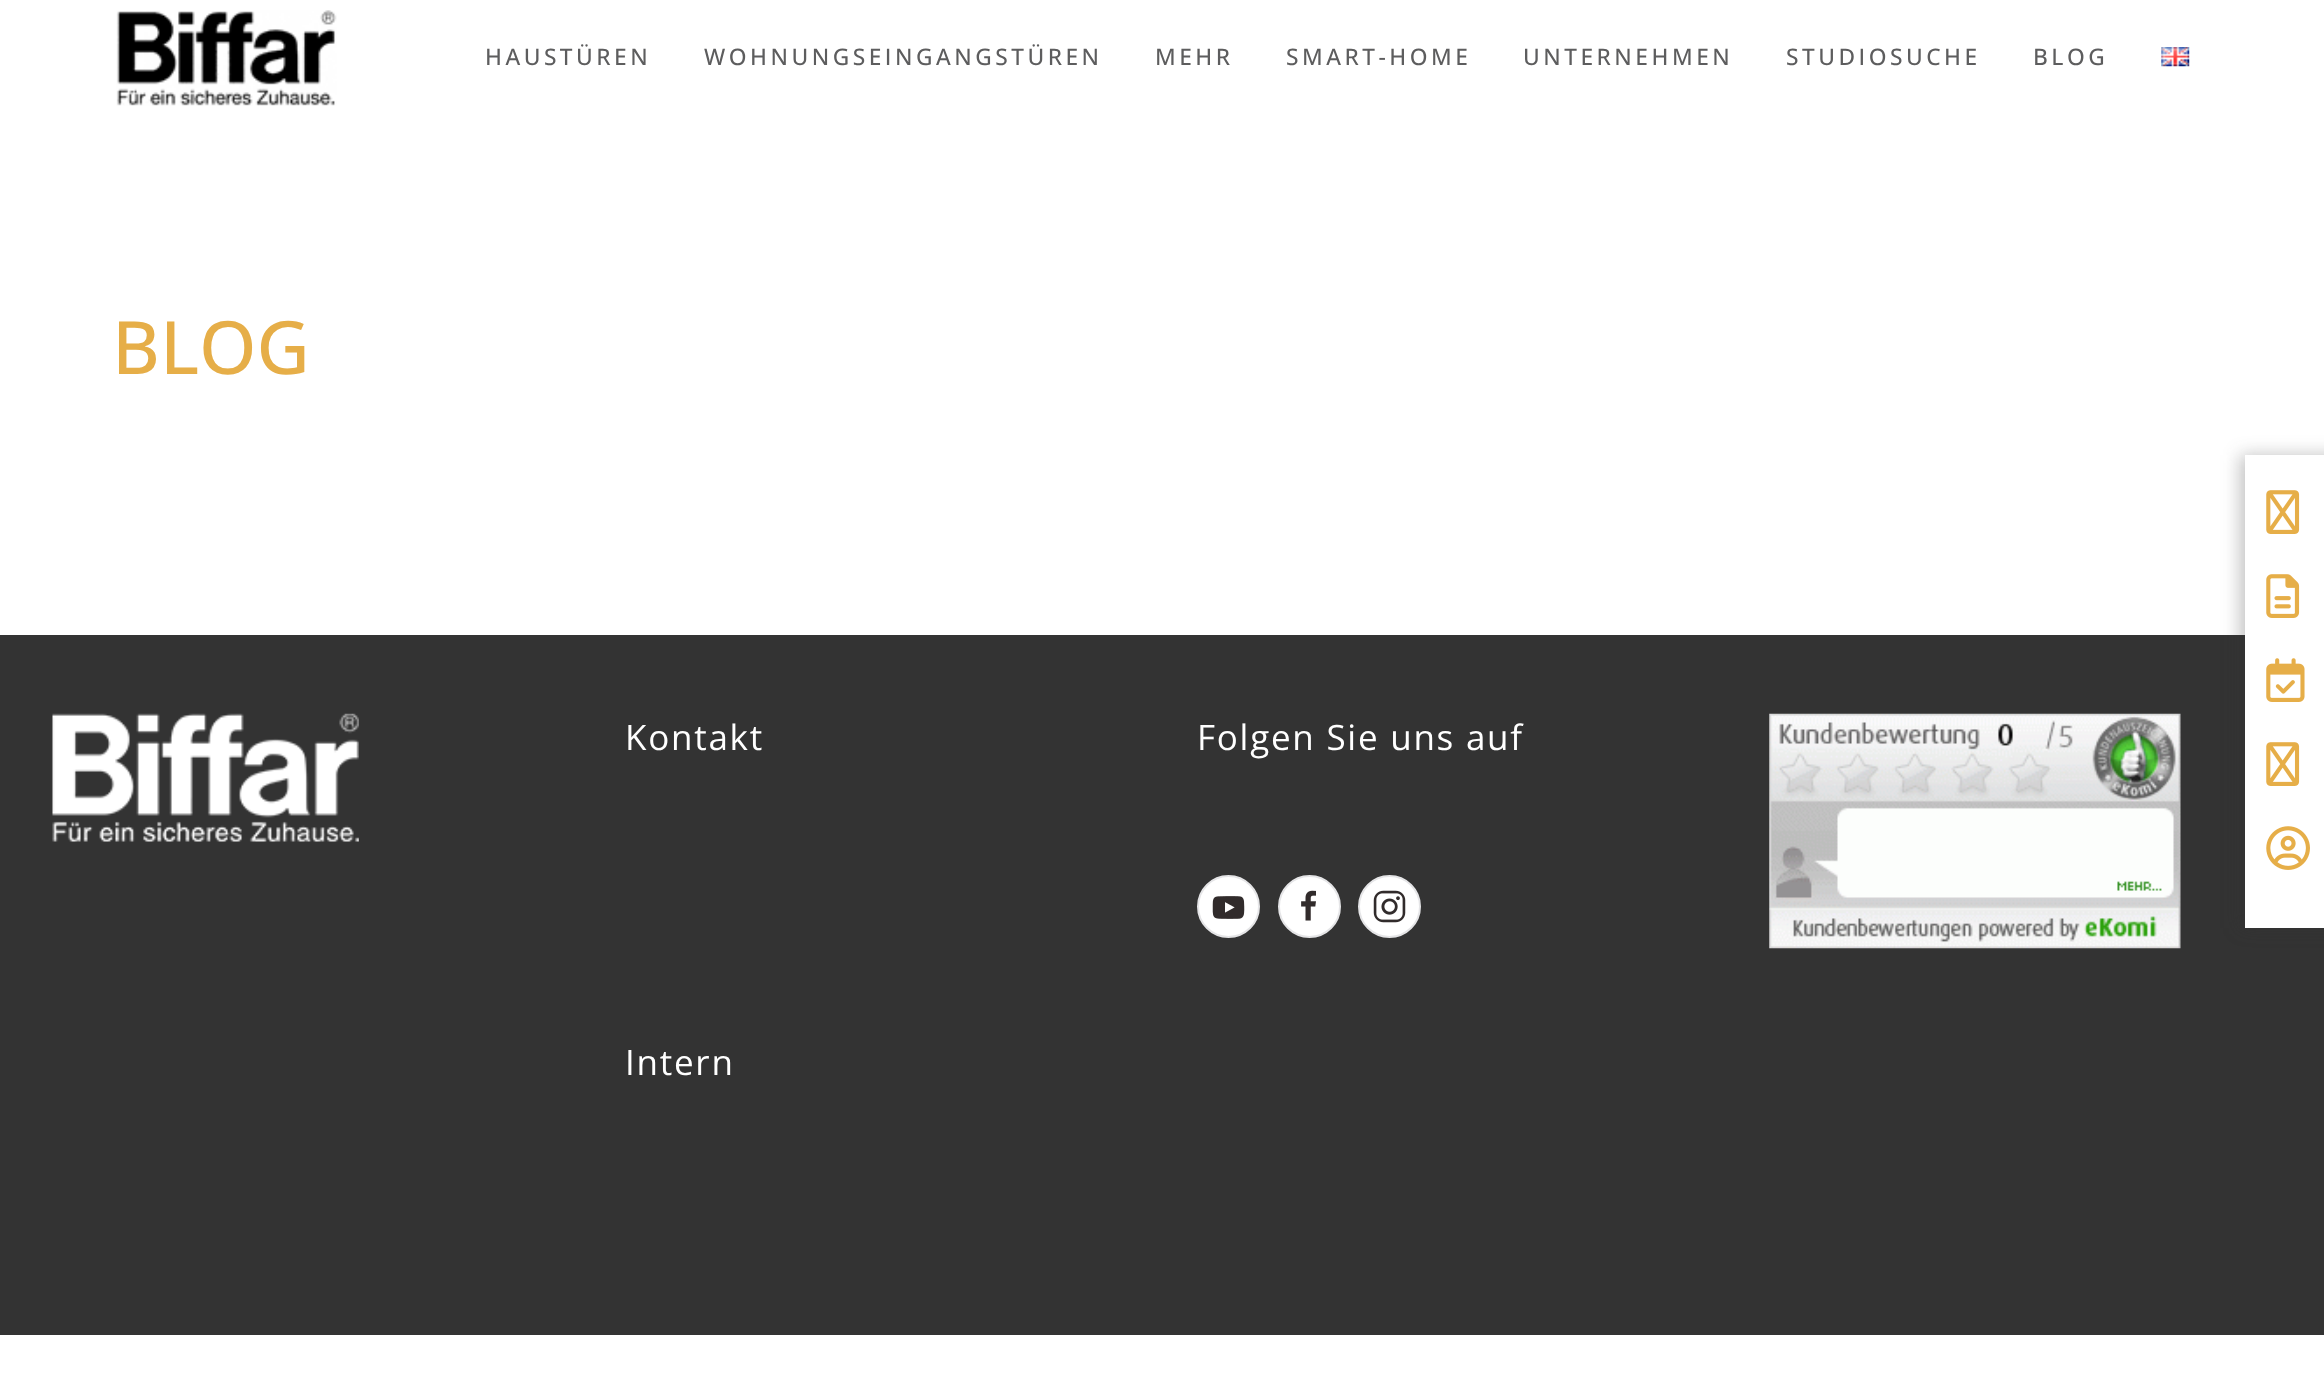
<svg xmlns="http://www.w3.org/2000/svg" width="2324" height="1387">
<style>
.a{font:500 22.75px Open Sans;letter-spacing:3.5px;fill:#5d5d5e}
.b{font:500 73.5px Open Sans;fill:#e6ae48}
.c{font:35px Open Sans;letter-spacing:1.75px;fill:#fff}
</style>
<rect width="100%" height="100%" fill="#fff"/>
<image href="1.png" x="116" y="10" width="221" height="96"/>
<image href="2.png" x="2161" y="47" width="29" height="20"/>
<path fill="#333" d="M0 635h2324v700H0z"/>
<image href="3.png" x="52" y="713" width="307" height="129"/>
<circle fill="#fff" stroke="#e5e5e7" stroke-width="2" cx="1228.5" cy="906.5" r="30.5"/>
<image href="4.png" x="1212" y="896" width="33" height="23"/>
<circle fill="#fff" stroke="#e5e5e7" stroke-width="2" cx="1309.5" cy="906.5" r="30.5"/>
<image href="5.png" x="1301" y="890" width="15" height="31"/>
<circle fill="#fff" stroke="#e5e5e7" stroke-width="2" cx="1389.5" cy="906.5" r="30.5"/>
<image href="6.png" x="1373" y="890" width="33" height="33"/>
<image href="7.png" x="1769" y="713" width="412" height="236"/>
<path fill="#3232324d" filter="blur(9px)" d="M2240 455h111v473H2240z"/>
<path fill="#fff" d="M2245 455h79v473H2245z"/>
<image href="8.png" x="2266" y="490" width="34" height="44"/>
<image href="9.png" x="2266" y="574" width="34" height="44"/>
<image href="10.png" x="2266" y="658" width="39" height="44"/>
<image href="8.png" x="2266" y="742" width="34" height="44"/>
<image href="11.png" x="2266" y="826" width="44" height="44"/>
<text class="a" x="485" y="65">HAUSTÜREN</text>
<text class="a" x="704" y="65">WOHNUNGSEINGANGSTÜREN</text>
<text class="a" x="1155" y="65">MEHR</text>
<text class="a" x="1286" y="65">SMART-HOME</text>
<text class="a" x="1523" y="65">UNTERNEHMEN</text>
<text class="a" x="1786" y="65">STUDIOSUCHE</text>
<text class="a" x="2033" y="65">BLOG</text>
<text class="b" x="112" y="374">BLOG</text>
<text class="c" x="625" y="750">Kontakt</text>
<text class="c" x="625" y="1075">Intern</text>
<text class="c" x="1197" y="750">Folgen Sie uns auf</text>
</svg>
